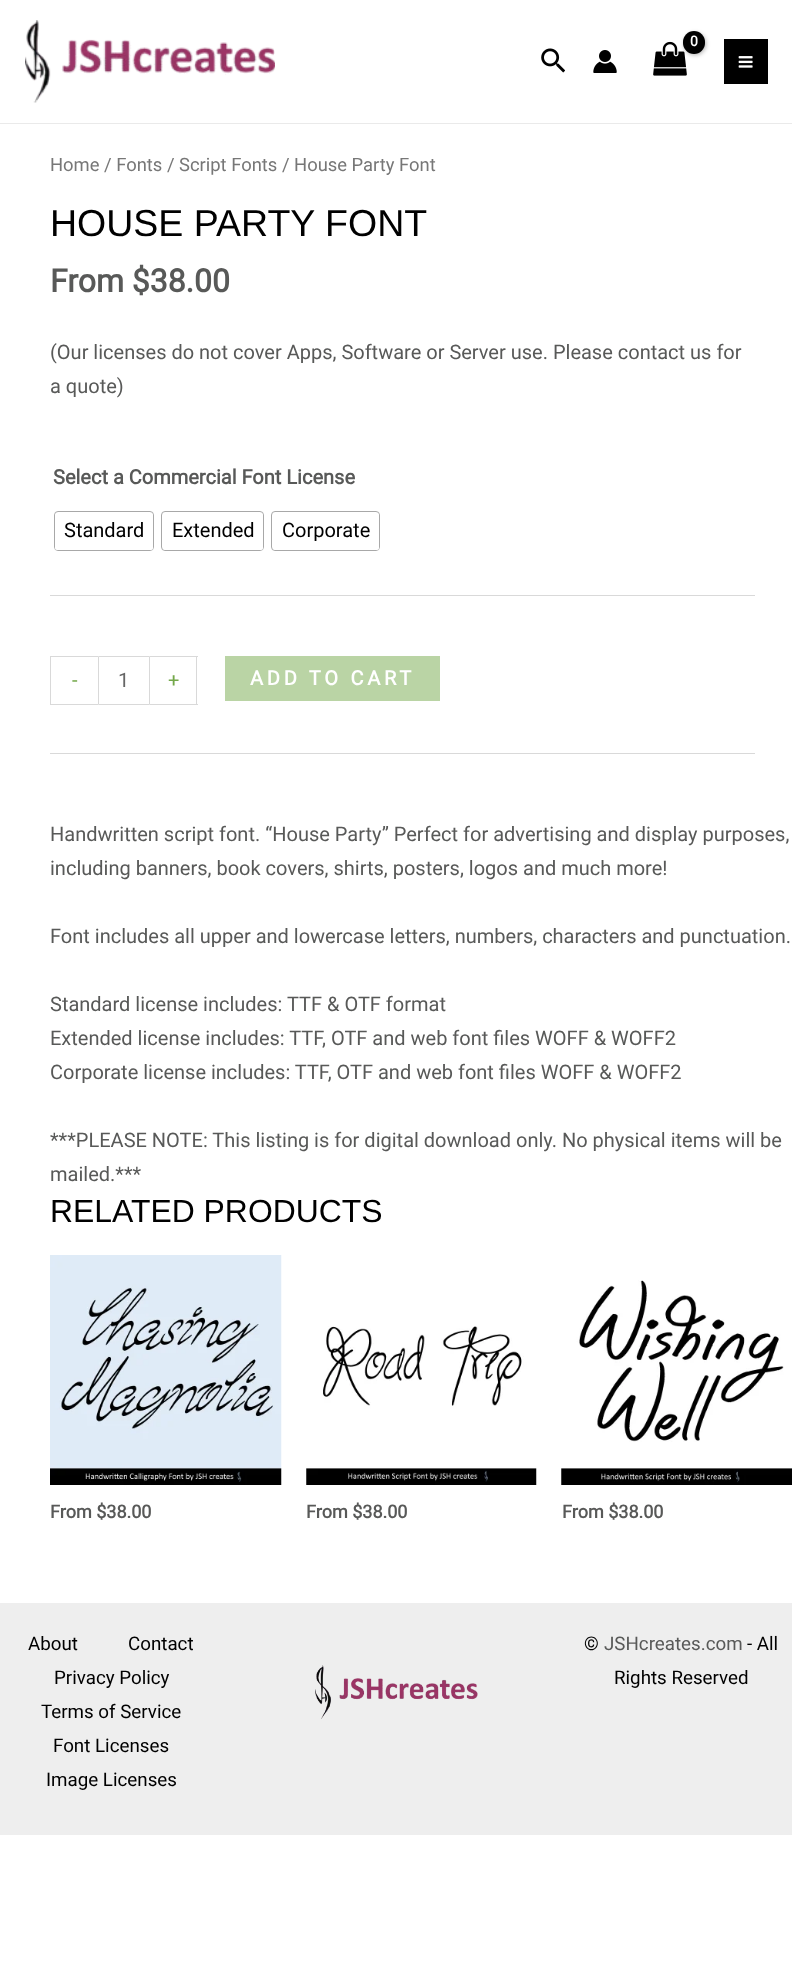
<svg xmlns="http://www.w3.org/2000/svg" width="792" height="1982">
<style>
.a{font:bold 14px Roboto;letter-spacing:-1px;fill:#fff}
.b{font:18.4px Roboto;fill:#777}
.c{font:37.5px Liberation Sans;fill:#000}
.d{font:bold 31.9px Roboto;fill:#585958}
.e{font:20px Roboto;fill:#585958}
.f{font:bold 20px Roboto;fill:#585958}
.g{font:20px Roboto;fill:#000}
.h{font:20px Roboto;fill:#74a84a}
.i{font:20px Roboto;fill:#666}
.j{font:bold 20px Roboto;letter-spacing:3.75px;fill:#fff}
.k{font:31.9px Liberation Sans;fill:#000}
.l{font:bold 18px Roboto;fill:#585958}
.m{font:18.75px Roboto;fill:#000}
.n{font:18.75px Roboto;fill:#585958}
</style>
<rect width="100%" height="100%" fill="#fff"/>
<path fill="#eaeaea" d="M0 123h792v1H0z"/>
<image href="1.png" x="25" y="20" width="250" height="83"/>
<image href="2.png" x="541" y="48" width="24" height="25"/>
<image href="3.png" x="593" y="50" width="24" height="23"/>
<image href="4.png" x="653" y="41" width="34" height="35"/>
<rect fill="#0000004d" filter="blur(2px)" x="684" y="33" width="22" height="22" rx="11"/>
<rect fill="#000" x="683" y="31" width="22" height="23" rx="11"/>
<path fill="#000" d="M724 39h44v45H724z"/>
<image href="5.png" x="738" y="56" width="15" height="12"/>
<path fill="#d9d9d9" d="M50 595h705v1H50z"/>
<rect fill="none" stroke="#a8a8a8" x="54.5" y="511.5" width="99" height="39" rx="3.5"/>
<rect fill="#fff" x="55" y="513" width="98" height="37" rx="2.5"/>
<rect fill="none" stroke="#a8a8a8" x="161.5" y="511.5" width="102" height="39" rx="3.5"/>
<rect fill="#fff" x="163" y="513" width="100" height="37" rx="2.5"/>
<rect fill="none" stroke="#a8a8a8" x="271.5" y="511.5" width="108" height="39" rx="3.5"/>
<rect fill="#fff" x="273" y="513" width="106" height="37" rx="2.5"/>
<path fill="#d9d9d9" d="M50 656h48v1H50z"/>
<path fill="#d9d9d9" d="M50 704h48v1H50z"/>
<path fill="#d9d9d9" d="M50 656h1v49H50z"/>
<path fill="none" stroke="#d9d9d9" d="M98.5 656.5h51v48H98.5z"/>
<path fill="#d9d9d9" d="M150 656h48v1H150z"/>
<path fill="#d9d9d9" d="M196 656h1v49H196z"/>
<path fill="#d9d9d9" d="M150 704h48v1H150z"/>
<path fill="#bad4a5" d="M225 656h215v45H225z"/>
<path fill="#d9d9d9" d="M50 753h705v1H50z"/>
<image href="6.png" x="50" y="1255" width="232" height="230"/>
<image href="7.png" x="306" y="1326" width="231" height="159"/>
<image href="8.png" x="561" y="1280" width="231" height="205"/>
<path fill="#eee" d="M0 1603h792v232H0z"/>
<image href="9.png" x="315" y="1665" width="163" height="54"/>
<text class="a" x="690" y="46">0</text>
<text class="b" x="50" y="171">Home / Fonts / Script Fonts / House Party Font</text>
<text class="c" x="50" y="236">HOUSE PARTY FONT</text>
<text class="d" x="50" y="292">From $38.00</text>
<text class="e" x="50" y="359">(Our licenses do not cover Apps, Software or Server use. Please contact us for</text>
<text class="e" x="50" y="393">a quote)</text>
<text class="f" x="53" y="484">Select a Commercial Font License</text>
<text class="g" x="64" y="537">Standard</text>
<text class="g" x="172" y="537">Extended</text>
<text class="g" x="282" y="537">Corporate</text>
<text class="h" x="72" y="687">-</text>
<text class="i" x="118" y="687">1</text>
<text class="h" x="168" y="687">+</text>
<text class="j" x="250" y="685">ADD TO CART</text>
<text class="e" x="50" y="841">Handwritten script font. “House Party” Perfect for advertising and display purposes,</text>
<text class="e" x="50" y="875">including banners, book covers, shirts, posters, logos and much more!</text>
<text class="e" x="50" y="943">Font includes all upper and lowercase letters, numbers, characters and punctuation.</text>
<text class="e" x="50" y="1011">Standard license includes: TTF &amp; OTF format</text>
<text class="e" x="50" y="1045">Extended license includes: TTF, OTF and web font files WOFF &amp; WOFF2</text>
<text class="e" x="50" y="1079">Corporate license includes: TTF, OTF and web font files WOFF &amp; WOFF2</text>
<text class="e" x="50" y="1147">***PLEASE NOTE: This listing is for digital download only. No physical items will be</text>
<text class="e" x="50" y="1181">mailed.***</text>
<text class="k" x="50" y="1222">RELATED PRODUCTS</text>
<text class="l" x="50" y="1518">From $38.00</text>
<text class="l" x="306" y="1518">From $38.00</text>
<text class="l" x="562" y="1518">From $38.00</text>
<text class="m" x="28" y="1650">About</text>
<text class="m" x="128" y="1650">Contact</text>
<text class="m" x="54" y="1684">Privacy Policy</text>
<text class="m" x="41" y="1718">Terms of Service</text>
<text class="m" x="53" y="1752">Font Licenses</text>
<text class="m" x="46" y="1786">Image Licenses</text>
<text class="m" x="584" y="1650">©</text>
<text class="n" x="604" y="1650">JSHcreates.com</text>
<text class="m" x="747" y="1650">- All</text>
<text class="m" x="614" y="1684">Rights Reserved</text>
</svg>
